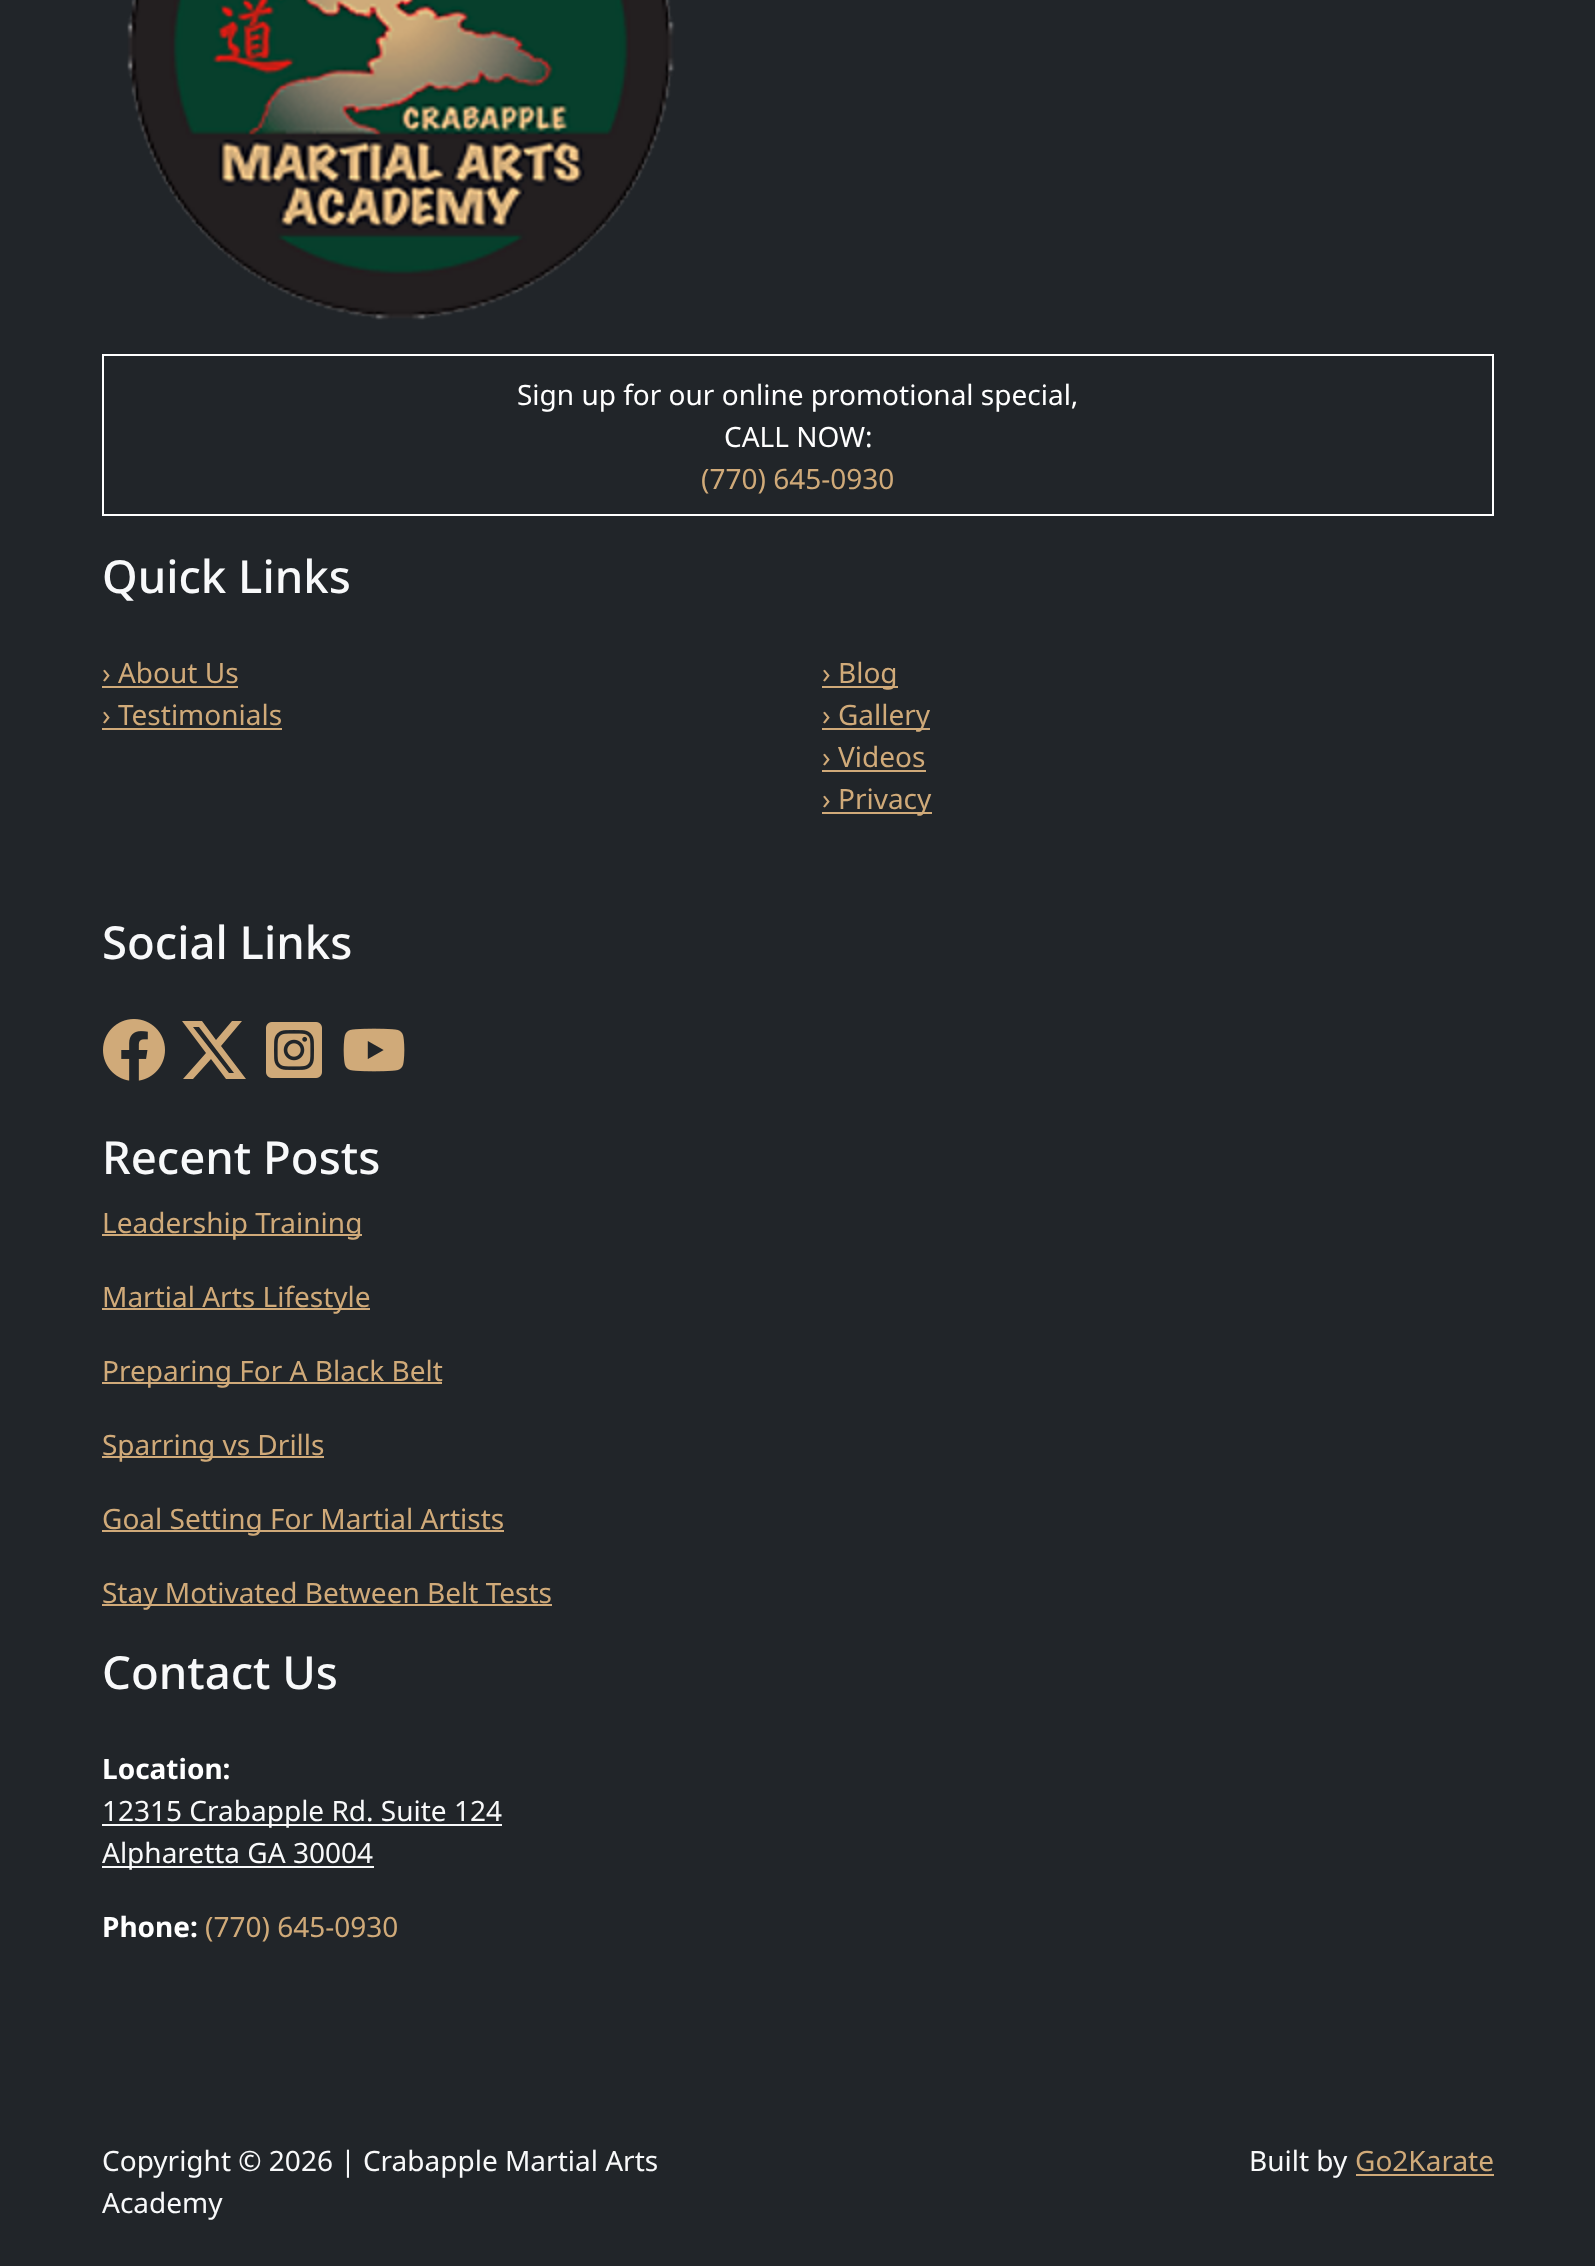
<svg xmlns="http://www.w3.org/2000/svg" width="1595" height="2266">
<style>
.a{font:28px Noto Sans;fill:#fff}
.b{font:28px Noto Sans;fill:#d0aa79}
.c{font:500 45.5px Noto Sans;fill:#f8f9fa}
.d{font:bold 28px Noto Sans;fill:#fff}
.e{font:28px Noto Sans;fill:#f8f9fa}
</style>
<rect width="100%" height="100%" fill="#212529"/>
<image href="1.png" x="127" y="0" width="548" height="320"/>
<path fill="none" stroke="#fff" stroke-width="2" d="M103 355h1390v160H103z"/>
<path fill="#d0aa79" d="M102 686h136v2H102z"/>
<path fill="#d0aa79" d="M102 728h180v2H102z"/>
<path fill="#d0aa79" d="M822 686h76v2H822z"/>
<path fill="#d0aa79" d="M822 728h108v2H822z"/>
<path fill="#d0aa79" d="M822 770h104v2H822z"/>
<path fill="#d0aa79" d="M822 812h110v2H822z"/>
<image href="2.png" x="103" y="1019" width="62" height="62"/>
<path fill="#d0aa79" d="M232 1021h10l-21 25l25 33h-20l-15-20l-18 20h-10l23-26l-24-32h20l14 19zm-3 52h5l-35-46h-6z"/>
<image href="3.png" x="266" y="1022" width="56" height="56"/>
<image href="4.png" x="343" y="1028" width="62" height="44"/>
<path fill="#d0aa79" d="M102 1234h260v2H102z"/>
<path fill="#d0aa79" d="M102 1308h268v2H102z"/>
<path fill="#d0aa79" d="M102 1382h340v2H102z"/>
<path fill="#d0aa79" d="M102 1456h222v2H102z"/>
<path fill="#d0aa79" d="M102 1530h402v2H102z"/>
<path fill="#d0aa79" d="M102 1604h450v2H102z"/>
<path fill="#f8f9fa" d="M102 1824h400v2H102z"/>
<path fill="#f8f9fa" d="M102 1866h272v2H102z"/>
<path fill="#d0aa79" d="M1356 2174h138v2H1356z"/>
<text class="a" x="517" y="405">Sign up for our online promotional special,</text>
<text class="a" x="724" y="447">CALL NOW:</text>
<text class="b" x="701" y="489">(770) 645-0930</text>
<text class="c" x="102" y="593">Quick Links</text>
<text class="b" x="102" y="683">› About Us</text>
<text class="b" x="102" y="725">› Testimonials</text>
<text class="b" x="822" y="683">› Blog</text>
<text class="b" x="822" y="725">› Gallery</text>
<text class="b" x="822" y="767">› Videos</text>
<text class="b" x="822" y="809">› Privacy</text>
<text class="c" x="102" y="959">Social Links</text>
<text class="c" x="102" y="1174">Recent Posts</text>
<text class="b" x="102" y="1233">Leadership Training</text>
<text class="b" x="102" y="1307">Martial Arts Lifestyle</text>
<text class="b" x="102" y="1381">Preparing For A Black Belt</text>
<text class="b" x="102" y="1455">Sparring vs Drills</text>
<text class="b" x="102" y="1529">Goal Setting For Martial Artists</text>
<text class="b" x="102" y="1603">Stay Motivated Between Belt Tests</text>
<text class="c" x="102" y="1689">Contact Us</text>
<text class="d" x="102" y="1779">Location:</text>
<text class="e" x="102" y="1821">12315 Crabapple Rd. Suite 124</text>
<text class="e" x="102" y="1863">Alpharetta GA 30004</text>
<text class="d" x="102" y="1937">Phone:</text>
<text class="b" x="205" y="1937">(770) 645-0930</text>
<text class="e" x="102" y="2171">Copyright © 2026 | Crabapple Martial Arts</text>
<text class="e" x="102" y="2213">Academy</text>
<text class="e" x="1249" y="2171">Built by</text>
<text class="b" x="1355" y="2171">Go2Karate</text>
</svg>
